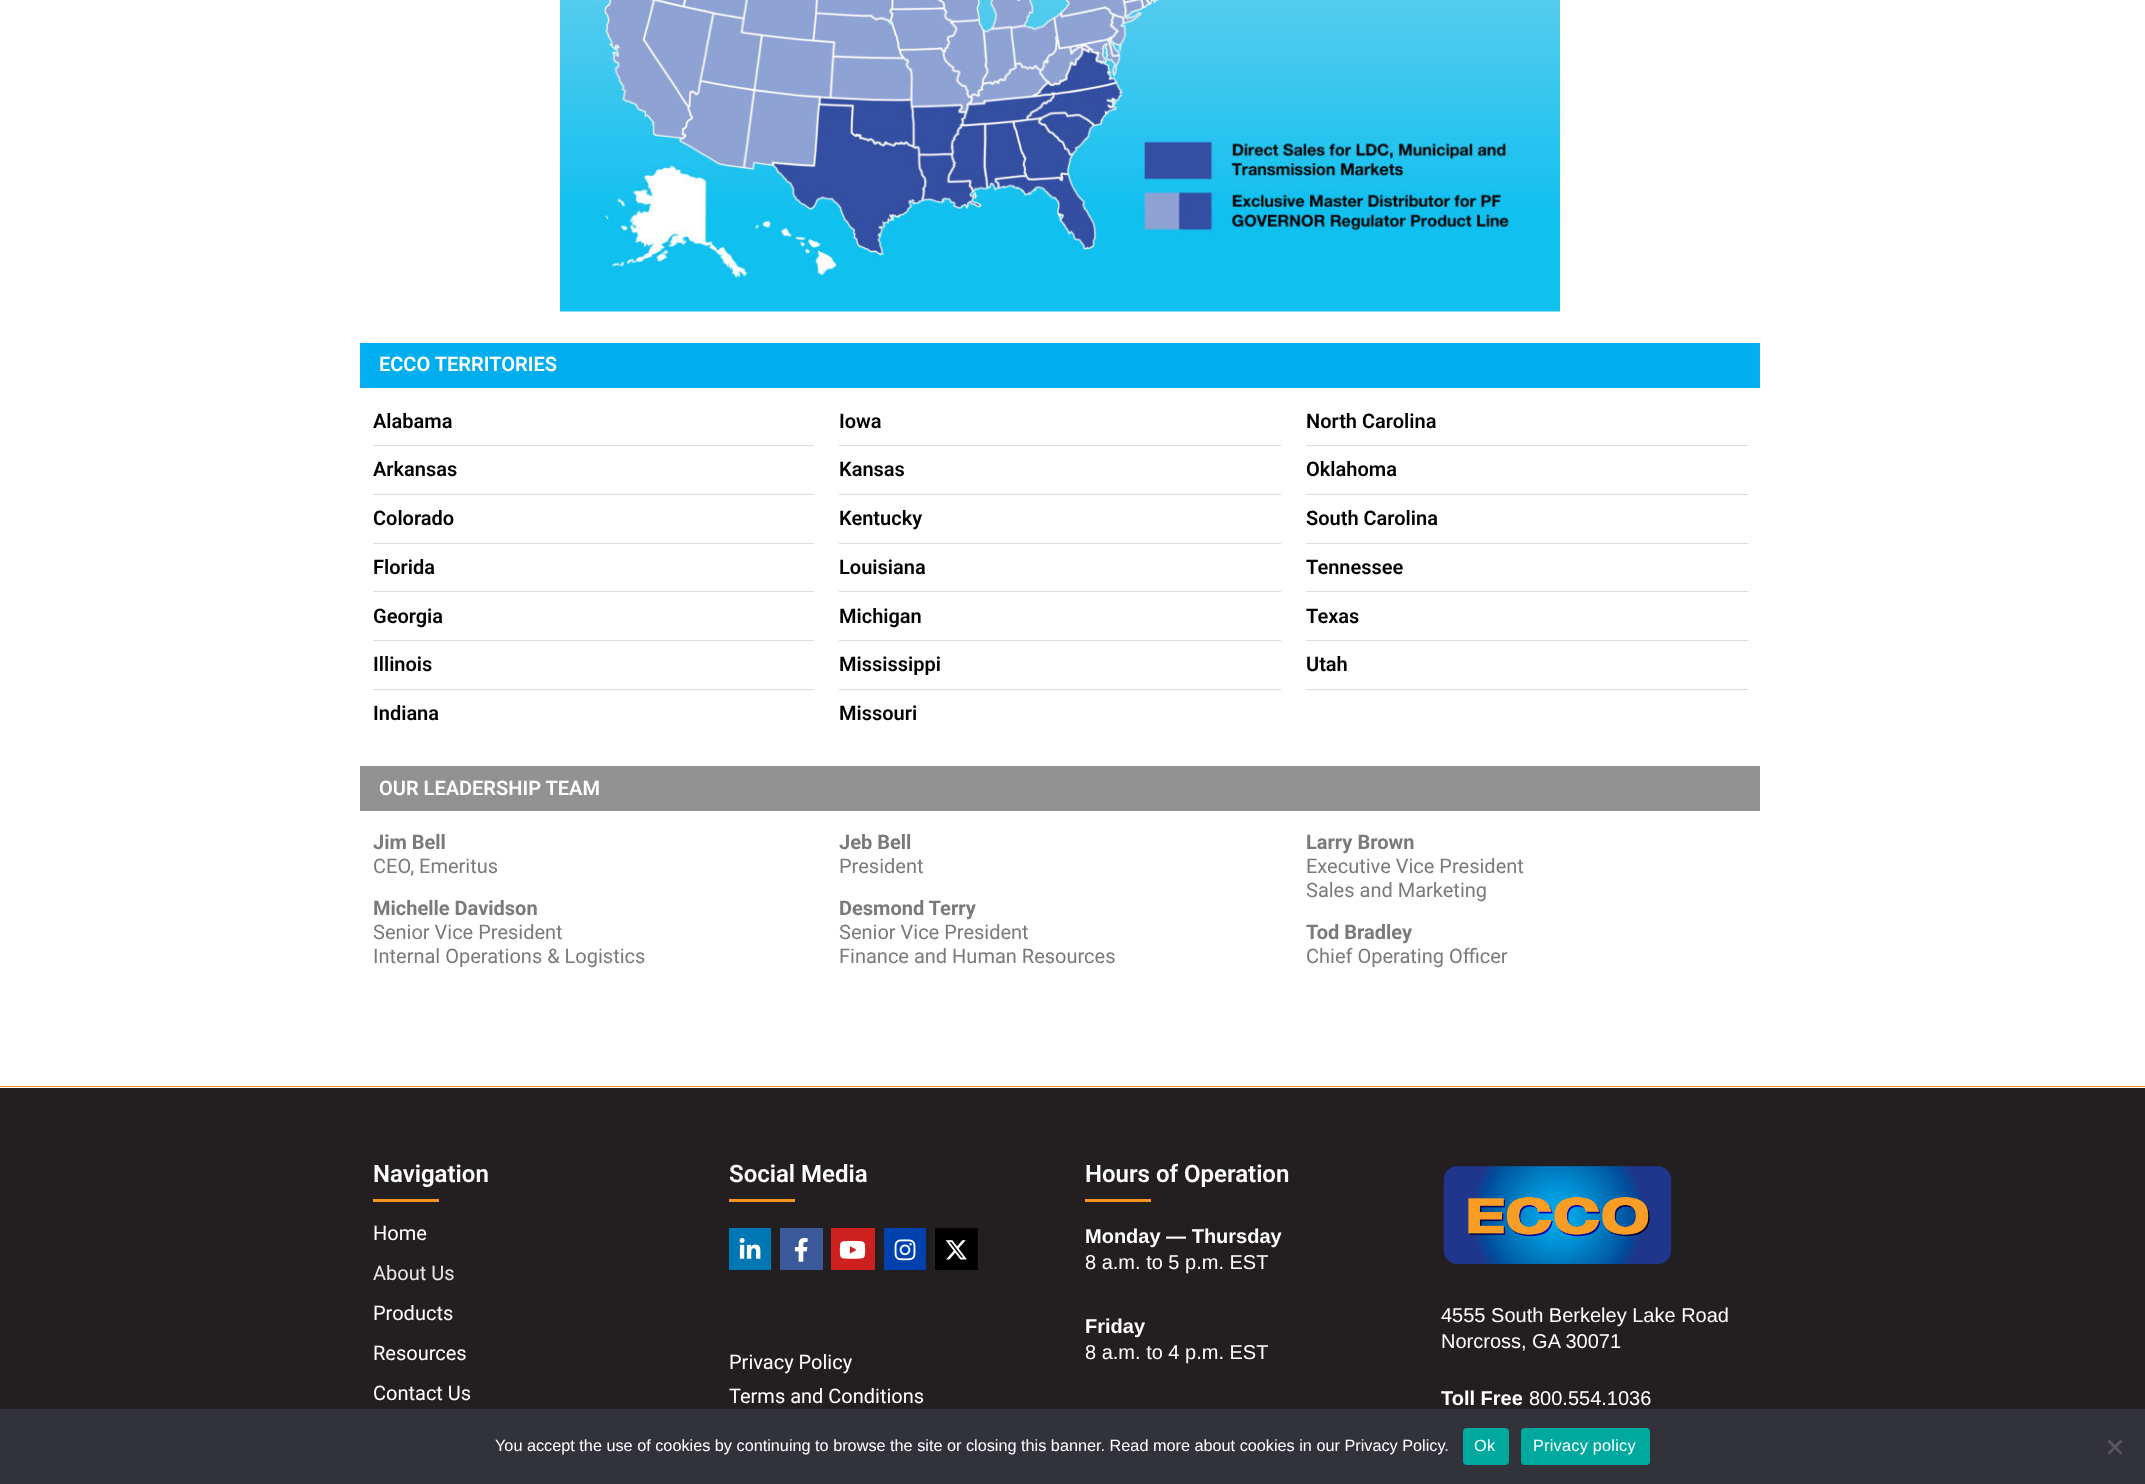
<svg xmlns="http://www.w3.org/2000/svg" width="2145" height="1484">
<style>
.a{font:600 20px Roboto;fill:#fff}
.b{font:600 20px Roboto;fill:#000}
.c{font:bold 20px Roboto;fill:#7a7a7a}
.d{font:20px Roboto;fill:#7a7a7a}
.e{font:600 24px Roboto;fill:#fff}
.f{font:20px Roboto;fill:#fff}
.g{font:20px Roboto;fill:#e7e7e7}
.h{font:bold 20px Liberation Sans;fill:#fff}
.i{font:20px Liberation Sans;fill:#fff}
.j{font:16.25px Liberation Sans;fill:#fff}
.k{font:16.25px Liberation Sans;letter-spacing:0.25px;fill:#fff}
</style>
<rect width="100%" height="100%" fill="#fff"/>
<image href="1.png" x="560" y="0" width="1000" height="312"/>
<path fill="#00adef" d="M360 343h1400v45H360z"/>
<path fill="#ddd" d="M373 445h441v1H373z"/>
<path fill="#ddd" d="M373 494h441v1H373z"/>
<path fill="#ddd" d="M373 543h441v1H373z"/>
<path fill="#ddd" d="M373 591h441v1H373z"/>
<path fill="#ddd" d="M373 640h441v1H373z"/>
<path fill="#ddd" d="M373 689h441v1H373z"/>
<path fill="#ddd" d="M839 445h442v1H839z"/>
<path fill="#ddd" d="M839 494h442v1H839z"/>
<path fill="#ddd" d="M839 543h442v1H839z"/>
<path fill="#ddd" d="M839 591h442v1H839z"/>
<path fill="#ddd" d="M839 640h442v1H839z"/>
<path fill="#ddd" d="M839 689h442v1H839z"/>
<path fill="#ddd" d="M1306 445h442v1H1306z"/>
<path fill="#ddd" d="M1306 494h442v1H1306z"/>
<path fill="#ddd" d="M1306 543h442v1H1306z"/>
<path fill="#ddd" d="M1306 591h442v1H1306z"/>
<path fill="#ddd" d="M1306 640h442v1H1306z"/>
<path fill="#ddd" d="M1306 689h442v1H1306z"/>
<path fill="#929292" d="M360 766h1400v45H360z"/>
<path fill="#f7941d" d="M0 1086h2145v1H0z"/>
<path fill="#231f20" d="M0 1088h2145v321H0z"/>
<path fill="#f7941d" d="M373 1199h66v3H373z"/>
<path fill="#f7941d" d="M729 1199h66v3H729z"/>
<path fill="#0077b5" d="M729 1228h42v42H729z"/>
<image href="2.png" x="739" y="1238" width="22" height="21"/>
<path fill="#3b5998" d="M780 1228h43v42H780z"/>
<image href="3.png" x="794" y="1238" width="14" height="24"/>
<path fill="#cd201f" d="M831 1228h44v42H831z"/>
<image href="4.png" x="839" y="1240" width="27" height="19"/>
<path fill="#0041ad" d="M884 1228h42v42H884z"/>
<image href="5.png" x="894" y="1239" width="22" height="22"/>
<path fill="#000" d="M935 1228h43v42H935z"/>
<image href="6.png" x="945" y="1240" width="22" height="20"/>
<path fill="#f7941d" d="M1085 1199h66v3H1085z"/>
<image href="7.png" x="1443" y="1166" width="229" height="98"/>
<path fill="#32323a" d="M0 1409h2145v75H0z"/>
<rect fill="#00a99d" x="1463" y="1428" width="46" height="37" rx="4"/>
<rect fill="#00a99d" x="1521" y="1428" width="129" height="37" rx="4"/>
<path fill="#59595d" d="M2120.5 1439.5l2 2l-13 13l-2-1.5z"/>
<path fill="#59595d" d="M2107.5 1441.5l2-2l13 13.5l-2 1.5z"/>
<text class="a" x="379" y="371">ECCO TERRITORIES</text>
<text class="b" x="373" y="428">Alabama</text>
<text class="b" x="373" y="476">Arkansas</text>
<text class="b" x="373" y="525">Colorado</text>
<text class="b" x="373" y="574">Florida</text>
<text class="b" x="373" y="623">Georgia</text>
<text class="b" x="373" y="671">Illinois</text>
<text class="b" x="373" y="720">Indiana</text>
<text class="b" x="839" y="428">Iowa</text>
<text class="b" x="839" y="476">Kansas</text>
<text class="b" x="839" y="525">Kentucky</text>
<text class="b" x="839" y="574">Louisiana</text>
<text class="b" x="839" y="623">Michigan</text>
<text class="b" x="839" y="671">Mississippi</text>
<text class="b" x="839" y="720">Missouri</text>
<text class="b" x="1306" y="428">North Carolina</text>
<text class="b" x="1306" y="476">Oklahoma</text>
<text class="b" x="1306" y="525">South Carolina</text>
<text class="b" x="1306" y="574">Tennessee</text>
<text class="b" x="1306" y="623">Texas</text>
<text class="b" x="1306" y="671">Utah</text>
<text class="a" x="379" y="795">OUR LEADERSHIP TEAM</text>
<text class="c" x="373" y="849">Jim Bell</text>
<text class="d" x="373" y="873">CEO, Emeritus</text>
<text class="c" x="373" y="915">Michelle Davidson</text>
<text class="d" x="373" y="939">Senior Vice President</text>
<text class="d" x="373" y="963">Internal Operations &amp; Logistics</text>
<text class="c" x="839" y="849">Jeb Bell</text>
<text class="d" x="839" y="873">President</text>
<text class="c" x="839" y="915">Desmond Terry</text>
<text class="d" x="839" y="939">Senior Vice President</text>
<text class="d" x="839" y="963">Finance and Human Resources</text>
<text class="c" x="1306" y="849">Larry Brown</text>
<text class="d" x="1306" y="873">Executive Vice President</text>
<text class="d" x="1306" y="897">Sales and Marketing</text>
<text class="c" x="1306" y="939">Tod Bradley</text>
<text class="d" x="1306" y="963">Chief Operating Officer</text>
<text class="e" x="373" y="1182">Navigation</text>
<text class="f" x="373" y="1240">Home</text>
<text class="g" x="373" y="1280">About Us</text>
<text class="f" x="373" y="1320">Products</text>
<text class="f" x="373" y="1360">Resources</text>
<text class="f" x="373" y="1400">Contact Us</text>
<text class="e" x="729" y="1182">Social Media</text>
<text class="f" x="729" y="1369">Privacy Policy</text>
<text class="f" x="729" y="1403">Terms and Conditions</text>
<text class="e" x="1085" y="1182">Hours of Operation</text>
<text class="h" x="1085" y="1243">Monday — Thursday</text>
<text class="i" x="1085" y="1269">8 a.m. to 5 p.m. EST</text>
<text class="h" x="1085" y="1333">Friday</text>
<text class="i" x="1085" y="1359">8 a.m. to 4 p.m. EST</text>
<text class="i" x="1441" y="1322">4555 South Berkeley Lake Road</text>
<text class="i" x="1441" y="1348">Norcross, GA 30071</text>
<text class="h" x="1441" y="1405">Toll Free</text>
<text class="i" x="1529" y="1405">800.554.1036</text>
<text class="j" x="495" y="1451">You accept the use of cookies by continuing to browse the site or closing this banner. Read more about cookies in our Privacy Policy.</text>
<text class="k" x="1474" y="1451">Ok</text>
<text class="k" x="1533" y="1451">Privacy policy</text>
</svg>
